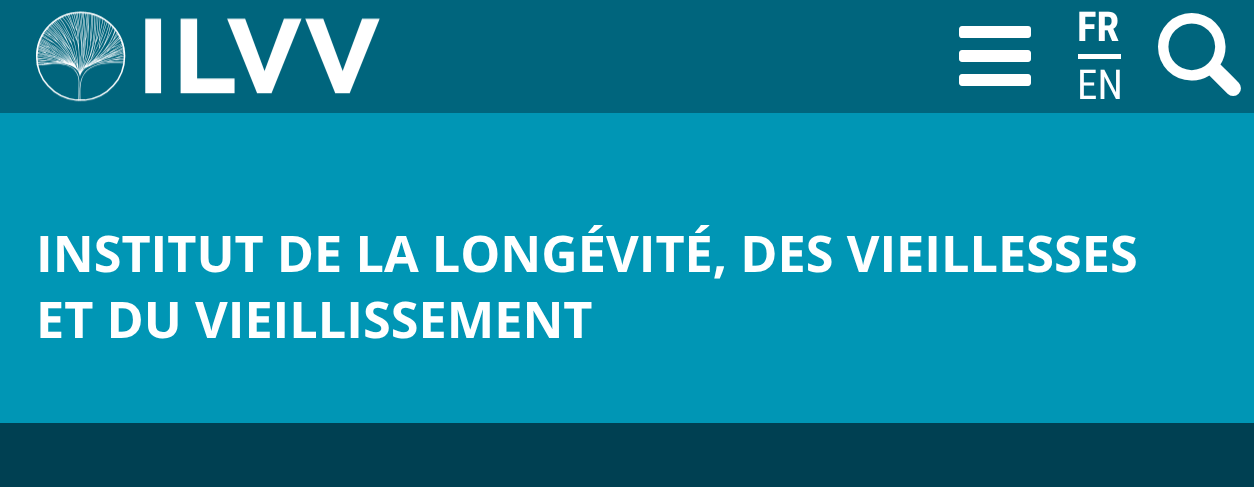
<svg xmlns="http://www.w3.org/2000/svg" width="1254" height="487">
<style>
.a{font:bold 41px Roboto Condensed;fill:#fff}
.b{font:41px Roboto Condensed;fill:#fff}
.c{font:72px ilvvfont;fill:#fff}
.d{font:bold 50.4px Open Sans;fill:#fff}
.e{font:83px ilvvfont;fill:#fff}
</style>
<rect width="100%" height="100%" fill="#0096b5"/>
<path fill="#00657d" d="M0 0h1254v113H0z"/>
<path fill="#fff" d="M1078 54h43v5H1078z"/>
<image href="1.png" x="36" y="11" width="344" height="91"/>
<path fill="#004052" d="M0 423h1254v64H0z"/>
<text class="a" x="1077" y="41">FR</text>
<text class="b" x="1077" y="99">EN</text>
<text class="c" x="959" y="92">T</text>
<text class="d" x="36" y="272">INSTITUT DE LA LONGÉVITÉ, DES VIEILLESSES</text>
<text class="d" x="36" y="338">ET DU VIEILLISSEMENT</text>
<text class="e" x="1158" y="96">M</text>
</svg>
